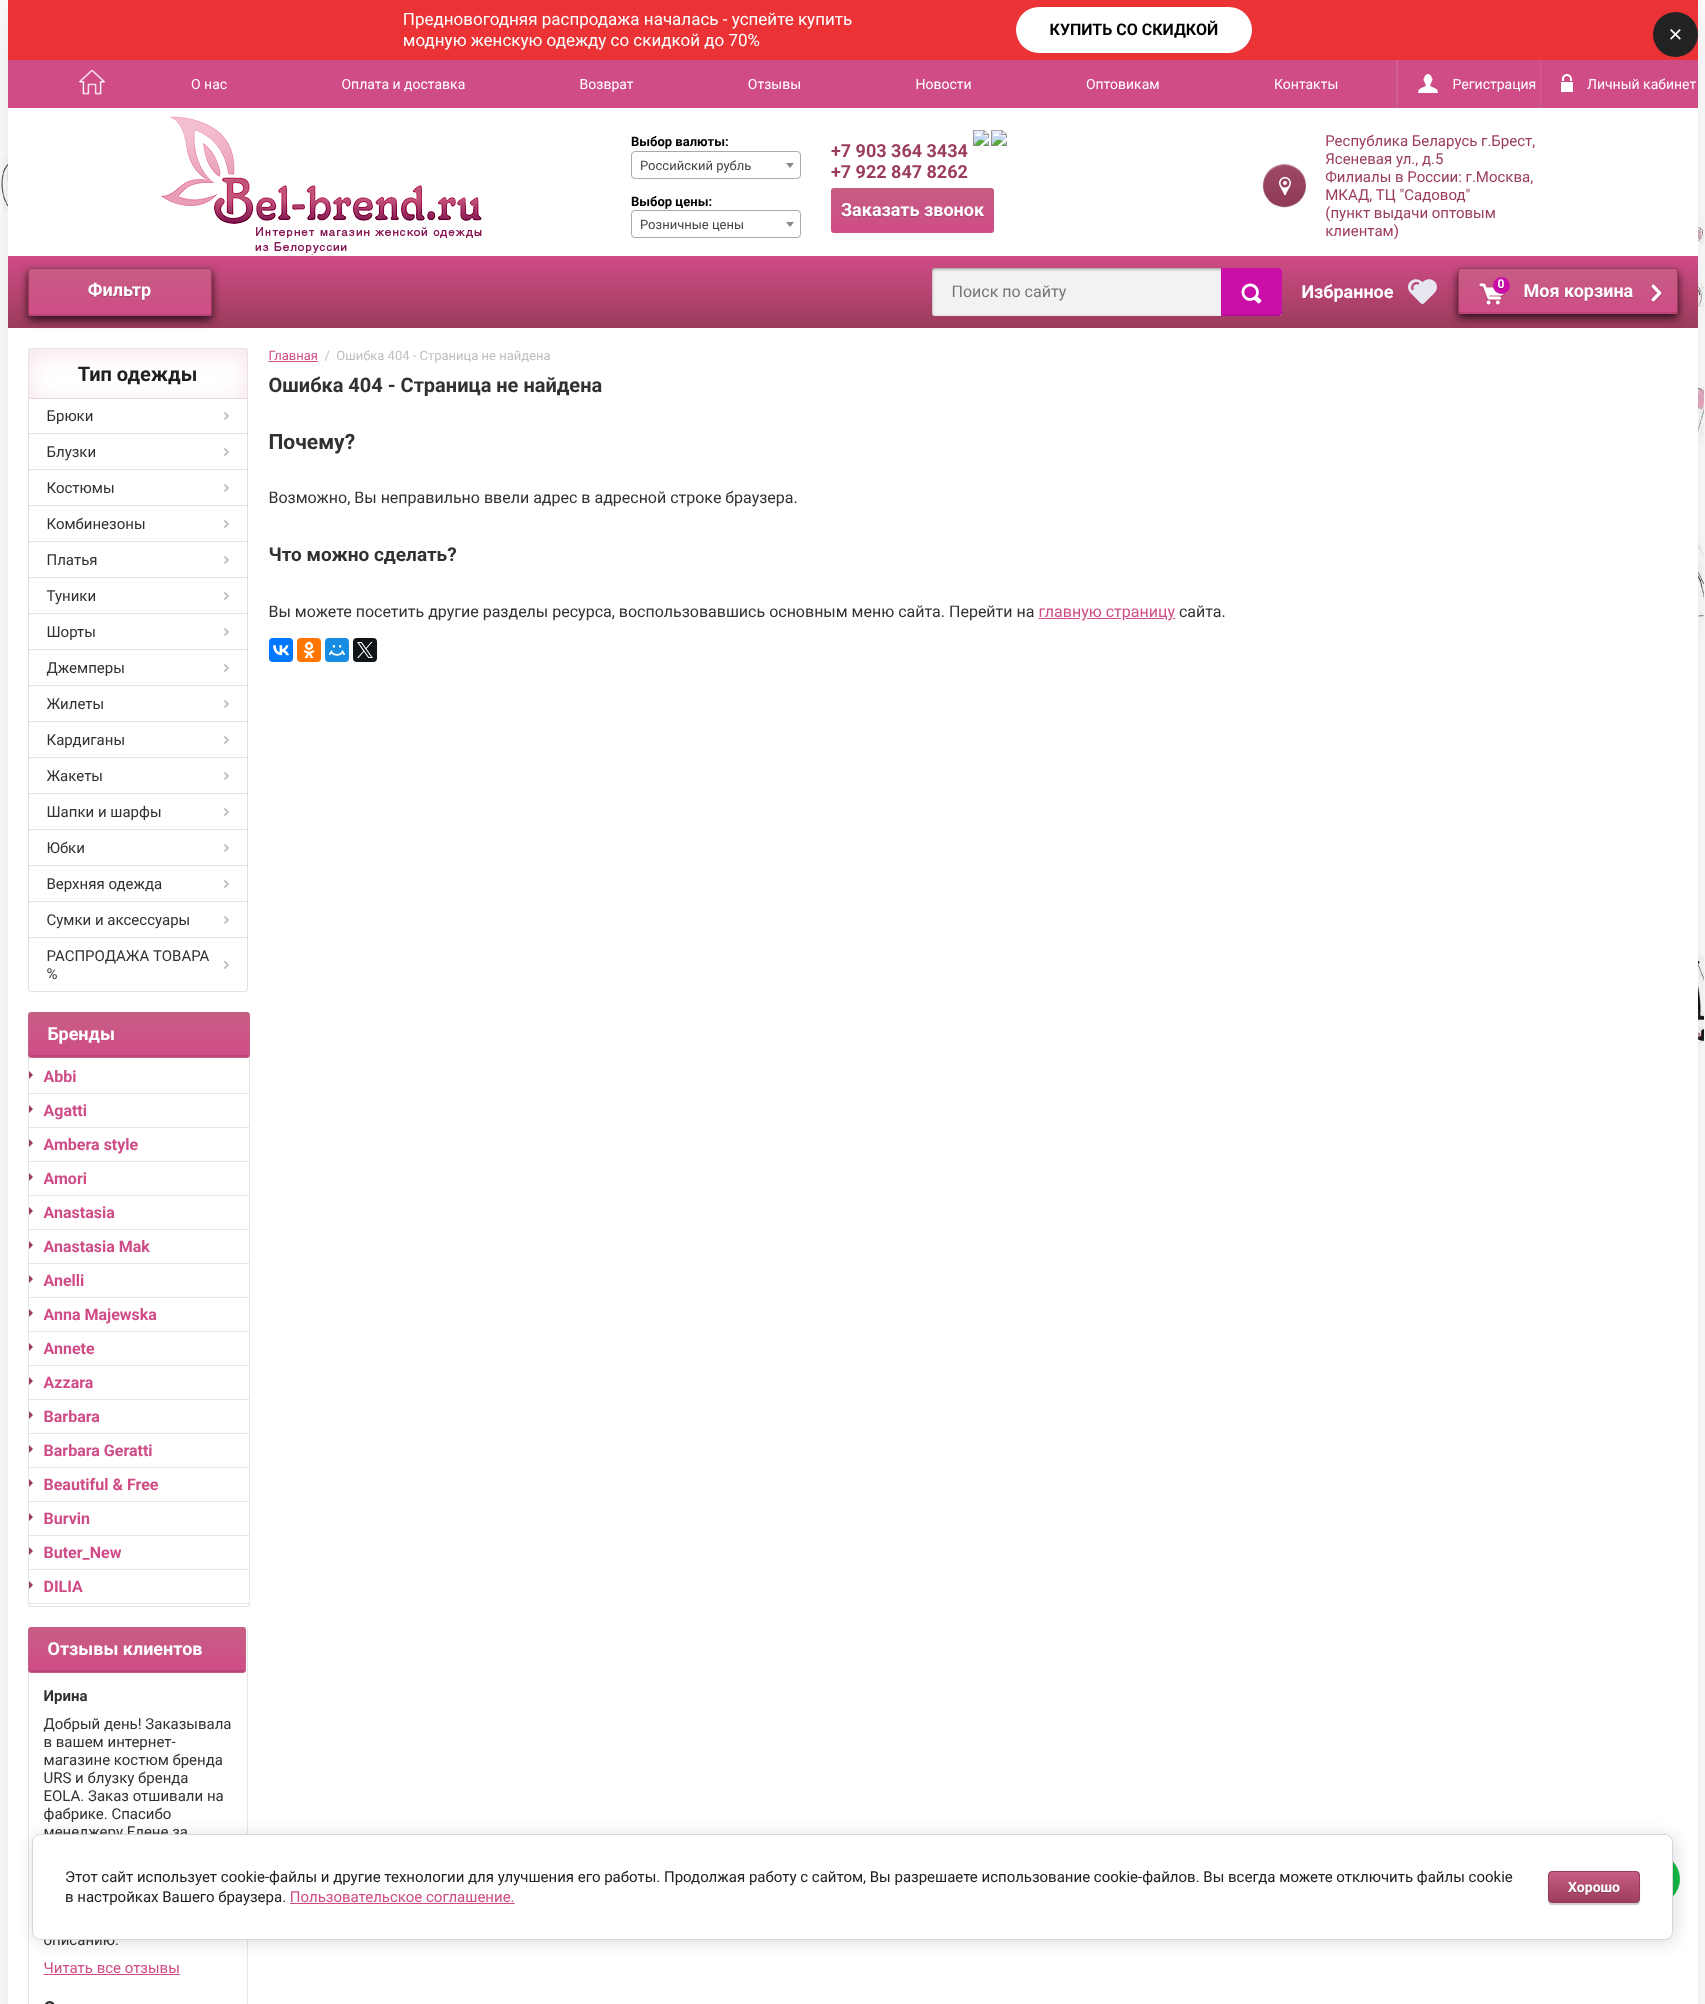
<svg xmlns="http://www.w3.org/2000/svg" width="1705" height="2004">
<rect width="100%" height="100%" fill="#fff"/>
<image href="1.png" x="0" y="0" width="1705" height="2004"/>
</svg>
